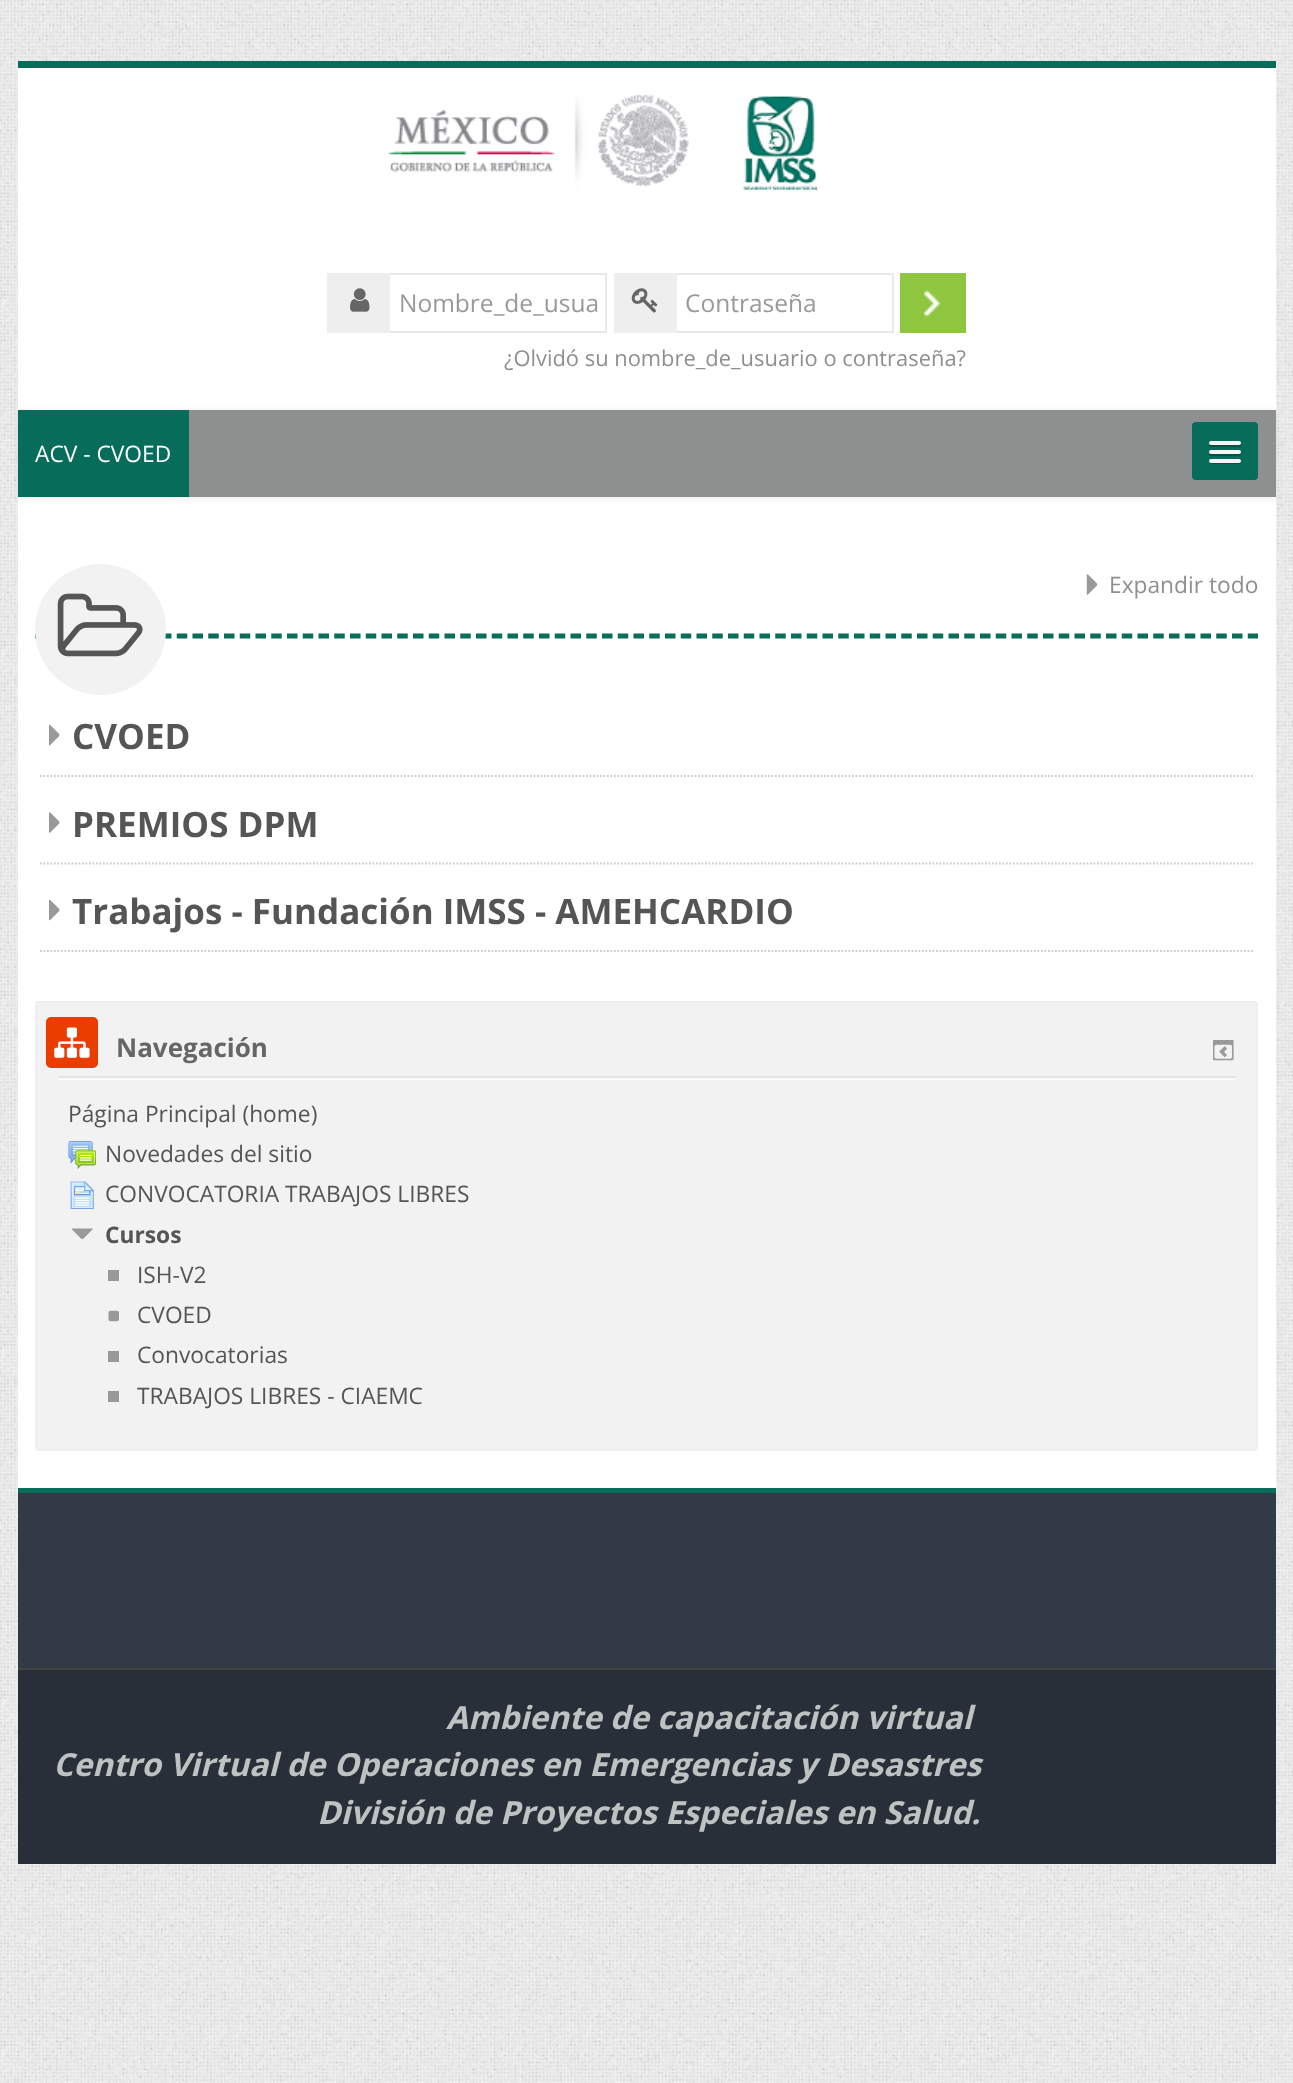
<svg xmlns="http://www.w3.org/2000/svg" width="1293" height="2083">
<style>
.a{font:24.5px Open Sans;fill:#999}
.b{font:21.9px Open Sans;fill:#8e908f}
.c{font:22.75px Open Sans;fill:#fff}
.d{font:22.75px Open Sans;fill:#8e908f}
.e{font:bold 35px Open Sans;fill:#555}
.f{font:bold 26px Open Sans;fill:#666}
.g{font:22.75px Open Sans;fill:#555}
.h{font:bold 22.75px Open Sans;fill:#555}
.i{font:italic bold 31.85px Open Sans;fill:#bdc3c2}
</style>
<rect width="100%" height="100%" fill="#fff"/>
<image href="1.png" x="0" y="0" width="1293" height="2083"/>
<path fill="#fff" d="M18 68h1258v1420H18z"/>
<path fill="#086c5b" d="M18 61h1258v7H18z"/>
<image href="2.png" x="387" y="95" width="431" height="97"/>
<path fill="none" stroke="#e9e9e9" stroke-width="2" d="M328 274h278v58H328z"/>
<path fill="#eee" d="M327 273h63v60H327z"/>
<image href="3.png" x="350" y="288" width="20" height="24"/>
<path fill="none" stroke="#e9e9e9" stroke-width="2" d="M615 274h278v58H615z"/>
<path fill="#eee" d="M614 273h63v60H614z"/>
<image href="4.png" x="631" y="288" width="27" height="25"/>
<path fill="#8ec63f" d="M900 273h66v60H900z"/>
<image href="5.png" x="924" y="290" width="16" height="27"/>
<path fill="#00000012" filter="blur(3.5px)" d="M18 411h1258v88H18z"/>
<path fill="#8e908f" d="M189 410h1087v87H189z"/>
<path fill="#086c5b" d="M18 410h171v87H18z"/>
<rect fill="#086c5b" x="1192" y="422" width="66" height="58" rx="4"/>
<path fill="#065144" d="M1209.5 443.5c-1 1.5-.5 3 1 3.5h29c1.5-.5 2-2 1-3.5l-1.5 1h-28z"/>
<rect fill="#f5f5f5" x="1209" y="441" width="32" height="4" rx="2"/>
<path fill="#065144" d="M1209.5 452.5c-1 1.5-.5 3.5 1.5 3.5c3.5 0 28 .5 29-.5c1-.5 1.5-2 .5-3l-1.5 .5h-28z"/>
<rect fill="#f5f5f5" x="1209" y="450" width="32" height="4" rx="2"/>
<path fill="#065144" d="M1209.5 461l-.5 1.5c.5 2.5 5.5 1.5 6.5 1.5h19c1 0 6 1 6.5-1.5l-.5-1.5c0 .5-.5 1-1.5 1h-28c-1 0-1.5-.5-1.5-1z"/>
<rect fill="#f5f5f5" x="1209" y="459" width="32" height="4" rx="2"/>
<path fill="none" stroke="#086c5b" stroke-width="5.2" stroke-dasharray="10.5 5.25" d="M35 636h1223"/>
<circle fill="#f2f2f2" cx="100.5" cy="629.5" r="65.5"/>
<image href="6.png" x="57" y="593" width="86" height="64"/>
<image href="7.png" x="1086" y="574" width="12" height="21"/>
<image href="8.png" x="49" y="724" width="11" height="22"/>
<path fill="none" stroke="#ccc" stroke-width="1.8" stroke-dasharray="1.75 1.75" d="M40 776h1213"/>
<image href="9.png" x="49" y="812" width="11" height="21"/>
<path fill="none" stroke="#ccc" stroke-width="1.8" stroke-dasharray="1.75 1.75" d="M40 863.5h1213"/>
<image href="8.png" x="49" y="899" width="11" height="22"/>
<path fill="none" stroke="#ccc" stroke-width="1.8" stroke-dasharray="1.75 1.75" d="M40 951h1213"/>
<rect fill="#f2f2f2" stroke="#efefef" stroke-width="2" x="36" y="1002" width="1221" height="448" rx="3"/>
<image href="10.png" x="58" y="1076" width="1178" height="4"/>
<rect fill="#eb3d00" x="46" y="1017" width="52" height="51" rx="5"/>
<image href="11.png" x="54" y="1027" width="36" height="31"/>
<image href="12.png" x="1213" y="1040" width="21" height="21"/>
<image href="13.png" x="68" y="1141" width="28" height="28"/>
<image href="14.png" x="70" y="1181" width="25" height="28"/>
<image href="15.png" x="72" y="1228" width="21" height="11"/>
<path fill="#999" d="M108 1270h11v11H108z"/>
<image href="16.png" x="108" y="1310" width="11" height="12"/>
<path fill="#999" d="M108 1351h11v11H108z"/>
<path fill="#999" d="M108 1391h11v11H108z"/>
<path fill="#323a45" d="M18 1493h1258v175H18z"/>
<path fill="#086c5b" d="M18 1488h1258v5H18z"/>
<path fill="#292f38" d="M18 1670h1258v194H18z"/>
<path fill="#444" d="M18 1668h1258v2H18z"/>
<text class="a" x="399" y="312">Nombre_de_usua</text>
<text class="a" x="685" y="312">Contraseña</text>
<text class="b" x="504" y="366">¿Olvidó su nombre_de_usuario o contraseña?</text>
<text class="c" x="35" y="462">ACV - CVOED</text>
<text class="d" x="1109" y="593">Expandir todo</text>
<text class="e" x="72" y="749">CVOED</text>
<text class="e" x="72" y="837">PREMIOS DPM</text>
<text class="e" x="72" y="924">Trabajos - Fundación IMSS - AMEHCARDIO</text>
<text class="f" x="116" y="1057">Navegación</text>
<text class="g" x="68" y="1122">Página Principal (home)</text>
<text class="g" x="105" y="1162">Novedades del sitio</text>
<text class="g" x="105" y="1202">CONVOCATORIA TRABAJOS LIBRES</text>
<text class="h" x="105" y="1243">Cursos</text>
<text class="g" x="137" y="1283">ISH-V2</text>
<text class="g" x="137" y="1323">CVOED</text>
<text class="g" x="137" y="1363">Convocatorias</text>
<text class="g" x="137" y="1404">TRABAJOS LIBRES - CIAEMC</text>
<text class="i" x="446" y="1729">Ambiente de capacitación virtual</text>
<text class="i" x="53" y="1776">Centro Virtual de Operaciones en Emergencias y Desastres</text>
<text class="i" x="317" y="1824">División de Proyectos Especiales en Salud.</text>
</svg>
